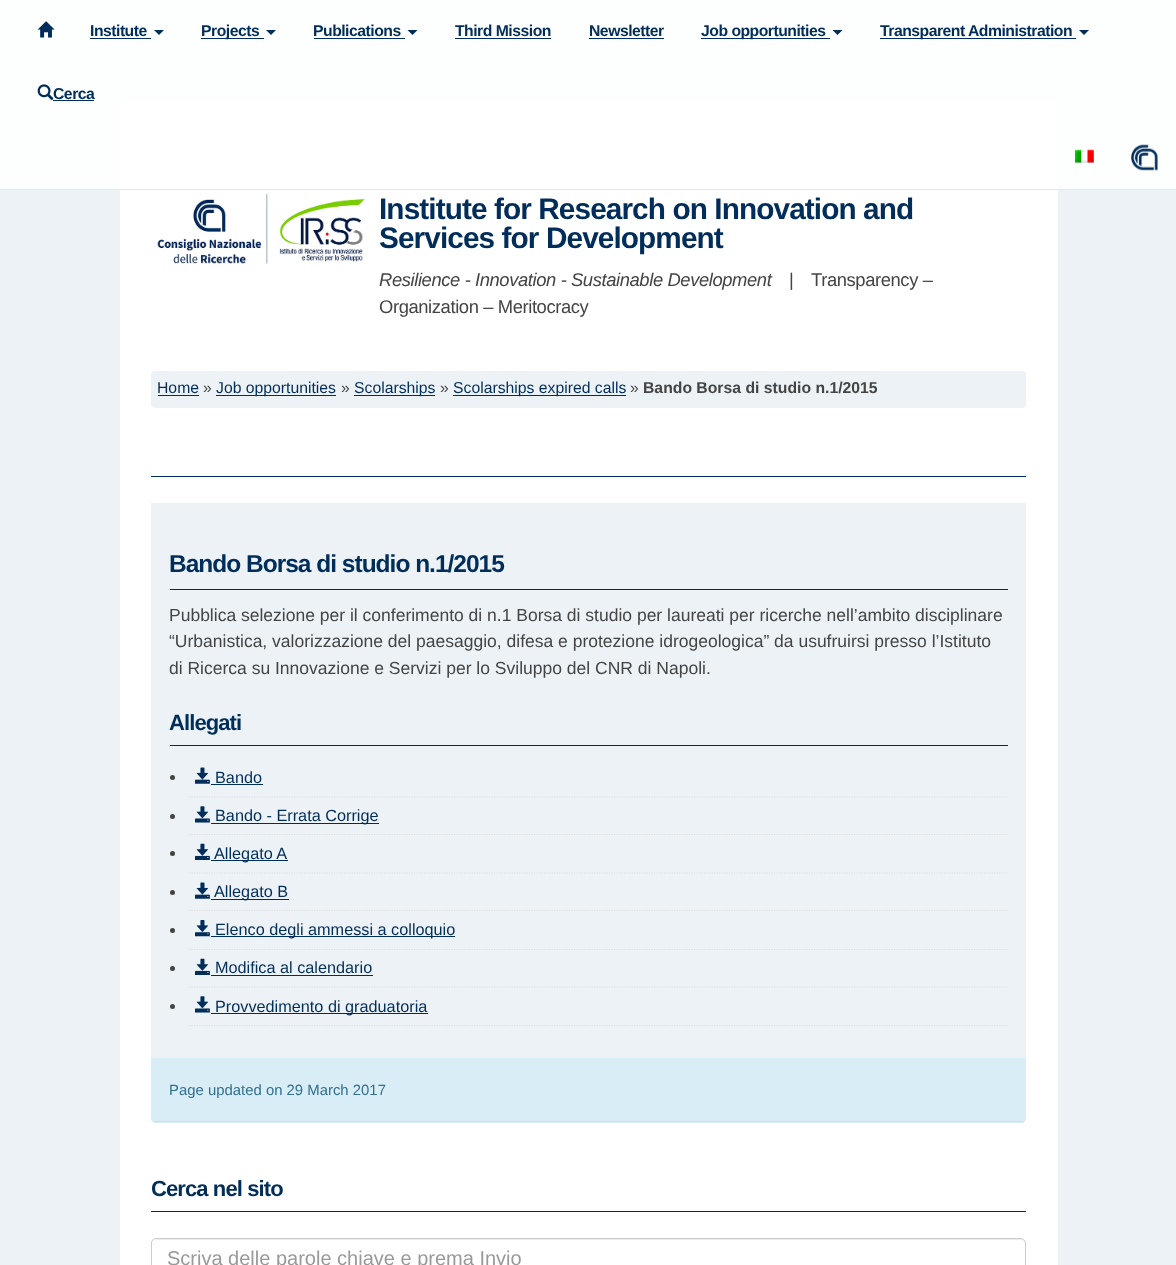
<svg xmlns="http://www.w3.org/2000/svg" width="1176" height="1265">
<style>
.a{font:bold 15.75px Liberation Sans;letter-spacing:-0.5px;fill:#002d5a}
.b{font:bold 29.75px Liberation Sans;letter-spacing:-0.9px;fill:#002d5a}
.c{font:italic 18.4px Liberation Sans;letter-spacing:-0.4px;fill:#444}
.d{font:18.4px Liberation Sans;letter-spacing:-0.4px;fill:#444}
.e{font:15.75px Liberation Sans;fill:#002d5a}
.f{font:15.75px Liberation Sans;fill:#444}
.g{font:bold 15.75px Liberation Sans;fill:#444}
.h{font:bold 24.5px Liberation Sans;letter-spacing:-1px;fill:#002d5a}
.i{font:17.5px Liberation Sans;fill:#444}
.j{font:bold 22px Liberation Sans;letter-spacing:-0.9px;fill:#002d5a}
.k{font:16.25px Liberation Sans;fill:#002d5a}
.l{font:14.9px Liberation Sans;fill:#31708f}
.m{font:20px Liberation Sans;fill:#999}
</style>
<rect width="100%" height="100%" fill="#ecf2f6"/>
<rect fill="#fff" x="120" y="100" width="938" height="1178" rx="13"/>
<path fill="#ffffffe6" d="M0 0h1176v189H0z"/>
<path fill="#e7e7e7" d="M0 189h1176v1H0z"/>
<image href="1.png" x="37" y="21" width="18" height="17"/>
<path fill="#002d5a" d="M90 38h61v1H90z"/>
<path fill="#002d5a" d="M154 30h10l-5 5z"/>
<path fill="#002d5a" d="M201 38h63v1H201z"/>
<path fill="#002d5a" d="M266 30h10l-5 5z"/>
<path fill="#002d5a" d="M314 38h91v1H314z"/>
<path fill="#002d5a" d="M407.5 30h10l-5 5z"/>
<path fill="#002d5a" d="M455 38h96v1H455z"/>
<path fill="#002d5a" d="M589 38h75v1H589z"/>
<path fill="#002d5a" d="M701 38h129v1H701z"/>
<path fill="#002d5a" d="M832.5 30h10l-5 5z"/>
<path fill="#002d5a" d="M880 38h196v1H880z"/>
<path fill="#002d5a" d="M1079 30h10l-5 5z"/>
<path fill="#002d5a" d="M53 100h41v1H53z"/>
<image href="3.png" x="1075" y="149" width="19" height="14"/>
<image href="4.png" x="1131" y="144" width="27" height="27"/>
<image href="5.png" x="157" y="193" width="208" height="71"/>
<rect fill="#ecf2f6" x="151" y="371" width="875" height="37" rx="4"/>
<path fill="#002d5a" d="M158 395h41v1H158z"/>
<path fill="#002d5a" d="M216 395h120v1H216z"/>
<path fill="#002d5a" d="M354 395h81v1H354z"/>
<path fill="#002d5a" d="M453 395h173v1H453z"/>
<path fill="#002d5a" d="M151 476h875v1H151z"/>
<path fill="#ecf2f6" d="M151 503h875v555H151z"/>
<path fill="#002d5a" d="M170 589h838v1H170z"/>
<path fill="#002d5a" d="M170 745h838v1H170z"/>
<path fill="none" stroke="#ddd" stroke-width="1.2" stroke-dasharray="1.25 1.25" d="M189 797h818.5"/>
<circle fill="#444" cx="172.5" cy="777.5" r="2.5"/>
<image href="6.png" x="195" y="767" width="15" height="17"/>
<path fill="#002d5a" d="M211 784h52v1H211z"/>
<path fill="none" stroke="#ddd" stroke-width="1.2" stroke-dasharray="1.25 1.25" d="M189 834.5h818.5"/>
<circle fill="#444" cx="172.5" cy="816.5" r="2.5"/>
<image href="7.png" x="195" y="806" width="15" height="17"/>
<path fill="#002d5a" d="M211 823h168v1H211z"/>
<path fill="none" stroke="#ddd" stroke-width="1.2" stroke-dasharray="1.25 1.25" d="M189 873h818.5"/>
<circle fill="#444" cx="172.5" cy="853.5" r="2.5"/>
<image href="8.png" x="195" y="843" width="15" height="17"/>
<path fill="#002d5a" d="M211 860h77v1H211z"/>
<path fill="none" stroke="#ddd" stroke-width="1.2" stroke-dasharray="1.25 1.25" d="M189 910.5h818.5"/>
<circle fill="#444" cx="172.5" cy="892.5" r="2.5"/>
<image href="6.png" x="195" y="882" width="15" height="17"/>
<path fill="#002d5a" d="M211 899h78v1H211z"/>
<path fill="none" stroke="#ddd" stroke-width="1.2" stroke-dasharray="1.25 1.25" d="M189 949.5h818.5"/>
<circle fill="#444" cx="172.5" cy="930.5" r="2.5"/>
<image href="9.png" x="195" y="920" width="15" height="17"/>
<path fill="#002d5a" d="M211 936h244v1H211z"/>
<path fill="none" stroke="#ddd" stroke-width="1.2" stroke-dasharray="1.25 1.25" d="M189 987h818.5"/>
<circle fill="#444" cx="172.5" cy="968.5" r="2.5"/>
<image href="8.png" x="195" y="958" width="15" height="17"/>
<path fill="#002d5a" d="M211 975h162v1H211z"/>
<path fill="none" stroke="#ddd" stroke-width="1.2" stroke-dasharray="1.25 1.25" d="M189 1025.5h818.5"/>
<circle fill="#444" cx="172.5" cy="1006.5" r="2.5"/>
<image href="7.png" x="195" y="996" width="15" height="17"/>
<path fill="#002d5a" d="M211 1013h217v1H211z"/>
<path fill="#d9edf7" d="M151 1058h875v60c0 3-2 5-5 5h-865c-3 0-5-2-5-5z"/>
<path fill="#bce8f1" d="M154 1121h870v1H154z"/>
<path fill="#002d5a" d="M151 1211h875v1H151z"/>
<path fill="#ececec" d="M156 1240h865c2 0 4 2 4 4v-1c0-2-2-4-4-4h-864c-1 0-3 1-3 2z"/>
<rect fill="none" stroke="#ccc" x="151.5" y="1238.5" width="874" height="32" rx="4.5"/>
<text class="a" x="90" y="36">Institute</text>
<text class="a" x="201" y="36">Projects</text>
<text class="a" x="313" y="36">Publications</text>
<text class="a" x="455" y="36">Third Mission</text>
<text class="a" x="589" y="36">Newsletter</text>
<text class="a" x="701" y="36">Job opportunities</text>
<text class="a" x="880" y="36">Transparent Administration</text>
<text class="a" x="53" y="99">Cerca</text>
<image href="2.png" x="37" y="84" width="17" height="17"/>
<text class="b" x="379" y="219">Institute for Research on Innovation and</text>
<text class="b" x="379" y="248">Services for Development</text>
<text class="c" x="379" y="286">Resilience</text>
<text class="d" x="465" y="286">-</text>
<text class="c" x="475" y="286">Innovation</text>
<text class="d" x="561" y="286">-</text>
<text class="c" x="571" y="286">Sustainable Development</text>
<text class="d" x="789" y="286">|</text>
<text class="d" x="811" y="286">Transparency –</text>
<text class="d" x="379" y="313">Organization – Meritocracy</text>
<text class="e" x="157" y="393">Home</text>
<text class="f" x="203" y="393">»</text>
<text class="e" x="216" y="393">Job opportunities</text>
<text class="f" x="341" y="393">»</text>
<text class="e" x="354" y="393">Scolarships</text>
<text class="f" x="440" y="393">»</text>
<text class="e" x="453" y="393">Scolarships expired calls</text>
<text class="f" x="630" y="393">»</text>
<text class="g" x="643" y="393">Bando Borsa di studio n.1/2015</text>
<text class="h" x="169" y="572">Bando Borsa di studio n.1/2015</text>
<text class="i" x="169" y="621">Pubblica selezione per il conferimento di n.1 Borsa di studio per laureati per ricerche nell’ambito disciplinare</text>
<text class="i" x="169" y="647">“Urbanistica, valorizzazione del paesaggio, difesa e protezione idrogeologica” da usufruirsi presso l’Istituto</text>
<text class="i" x="169" y="674">di Ricerca su Innovazione e Servizi per lo Sviluppo del CNR di Napoli.</text>
<text class="j" x="169" y="730">Allegati</text>
<text class="k" x="215" y="783">Bando</text>
<text class="k" x="215" y="821">Bando - Errata Corrige</text>
<text class="k" x="214" y="859">Allegato A</text>
<text class="k" x="214" y="897">Allegato B</text>
<text class="k" x="215" y="935">Elenco degli ammessi a colloquio</text>
<text class="k" x="215" y="973">Modifica al calendario</text>
<text class="k" x="215" y="1012">Provvedimento di graduatoria</text>
<text class="l" x="169" y="1095">Page updated on 29 March 2017</text>
<text class="j" x="151" y="1196">Cerca nel sito</text>
<text class="m" x="167" y="1265">Scriva delle parole chiave e prema Invio</text>
</svg>
